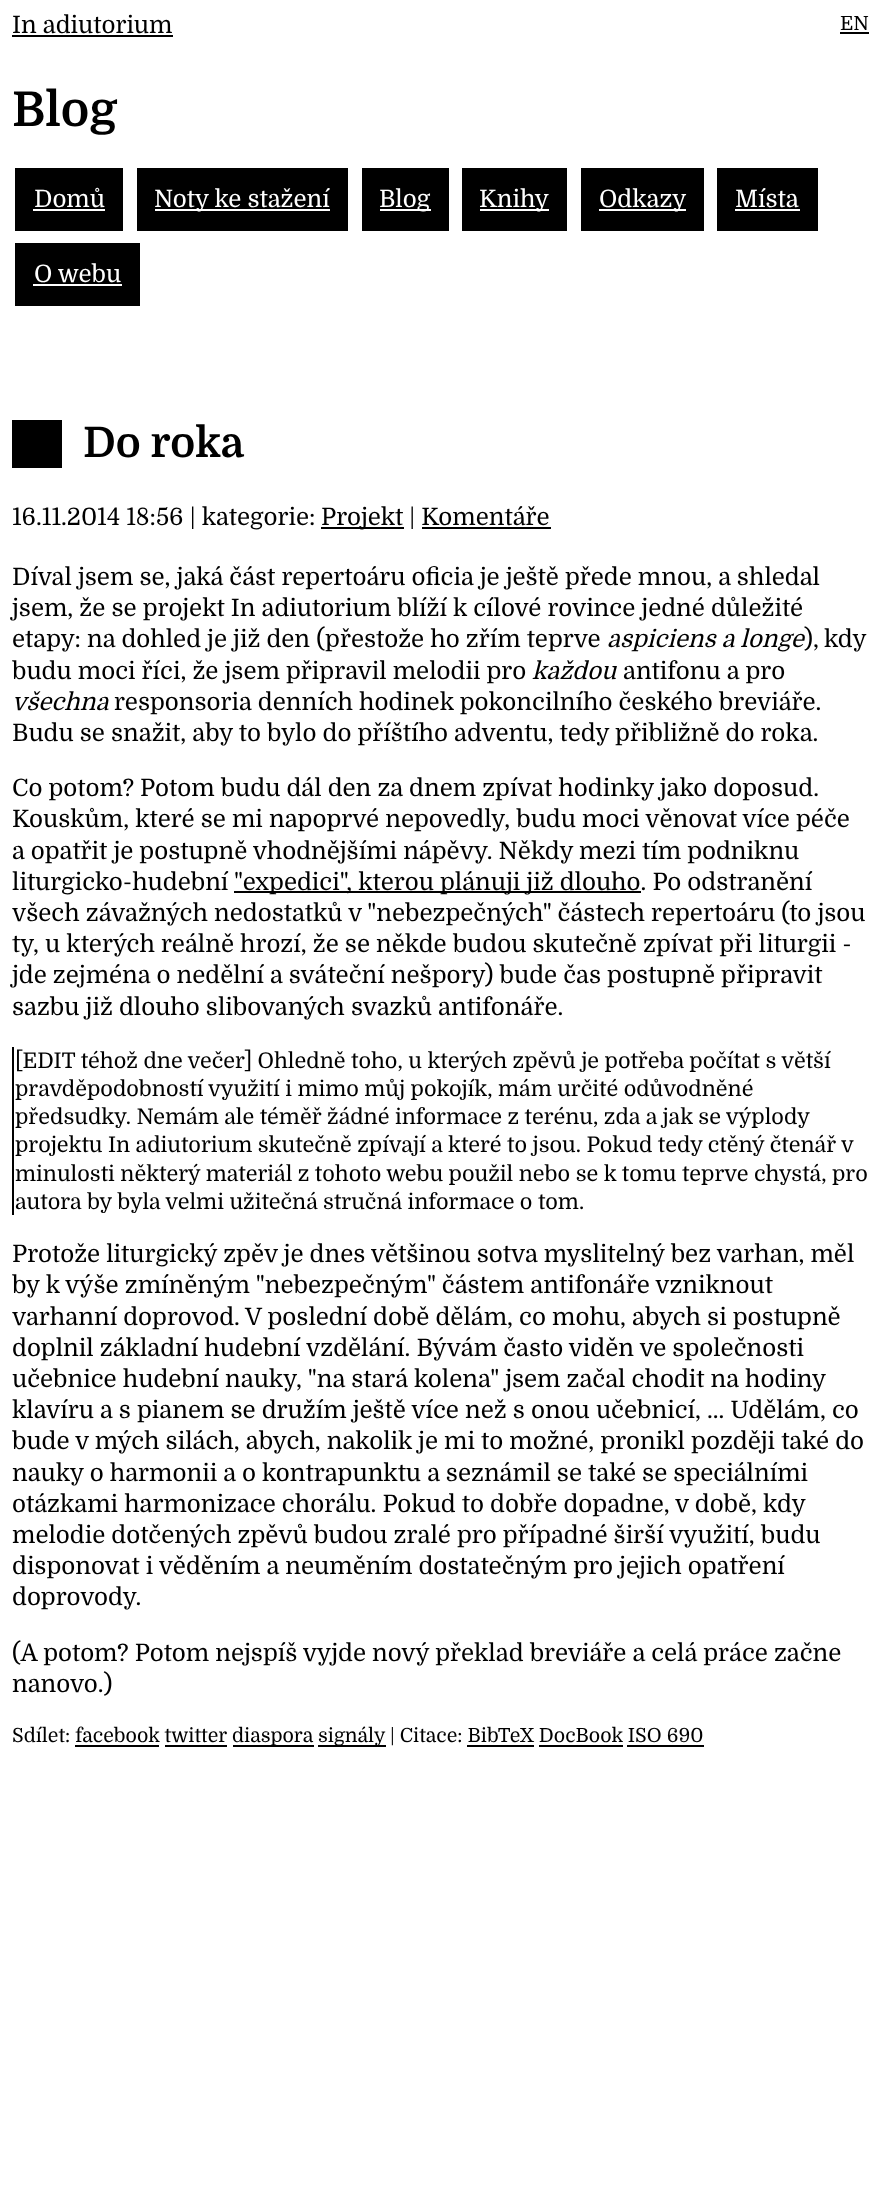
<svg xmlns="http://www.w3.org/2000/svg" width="880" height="2191">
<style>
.a{font:24px Domine;fill:#000}
.b{font:19.5px Domine;fill:#000}
.c{font:bold 48px Domine;fill:#000}
.d{font:24px Domine;fill:#fff}
.e{font:bold 42px Domine;fill:#000}
.f{font:italic 24px Domine;fill:#000}
.g{font:21.6px Domine;fill:#000}
</style>
<rect width="100%" height="100%" fill="#fff"/>
<path fill="#000" d="M12 35h161v2H12z"/>
<path fill="#000" d="M840 32h29v2H840z"/>
<path fill="#000" d="M15 168h108v63H15z"/>
<path fill="#fff" d="M33 209h72v2H33z"/>
<path fill="#000" d="M137 168h211v63H137z"/>
<path fill="#fff" d="M155 209h175v2H155z"/>
<path fill="#000" d="M362 168h87v63H362z"/>
<path fill="#fff" d="M380 209h51v2H380z"/>
<path fill="#000" d="M462 168h105v63H462z"/>
<path fill="#fff" d="M480 209h69v2H480z"/>
<path fill="#000" d="M581 168h123v63H581z"/>
<path fill="#fff" d="M599 209h87v2H599z"/>
<path fill="#000" d="M717 168h101v63H717z"/>
<path fill="#fff" d="M735 209h65v2H735z"/>
<path fill="#000" d="M15 243h125v63H15z"/>
<path fill="#fff" d="M33 284h89v2H33z"/>
<path fill="#000" d="M12 420h50v48H12z"/>
<path fill="#000" d="M321 527h83v2H321z"/>
<path fill="#000" d="M422 527h129v2H422z"/>
<path fill="#000" d="M234 891h407v2H234z"/>
<path fill="#000" d="M12 1047h2v168H12z"/>
<path fill="#000" d="M233 1745h81v2H233z"/>
<path fill="#000" d="M318 1745h68v2H318z"/>
<path fill="#000" d="M75 1745h84v2H75z"/>
<path fill="#000" d="M165 1745h62v2H165z"/>
<path fill="#000" d="M467 1745h67v2H467z"/>
<path fill="#000" d="M539 1745h84v2H539z"/>
<path fill="#000" d="M627 1745h77v2H627z"/>
<text class="a" x="12" y="33">In adiutorium</text>
<text class="b" x="840" y="30">EN</text>
<text class="c" x="12" y="126">Blog</text>
<text class="d" x="34" y="207">Domů</text>
<text class="d" x="154" y="207">Noty ke stažení</text>
<text class="d" x="379" y="207">Blog</text>
<text class="d" x="479" y="207">Knihy</text>
<text class="d" x="599" y="207">Odkazy</text>
<text class="d" x="735" y="207">Místa</text>
<text class="d" x="34" y="282">O webu</text>
<text class="e" x="83" y="457">Do roka</text>
<text class="a" x="12" y="525">16.11.2014 18:56 | kategorie:</text>
<text class="a" x="321" y="525">Projekt | Komentáře</text>
<text class="a" x="12" y="585">Díval jsem se, jaká část repertoáru oficia je ještě přede mnou, a shledal</text>
<text class="a" x="12" y="616">jsem, že se projekt In adiutorium blíží k cílové rovince jedné důležité</text>
<text class="a" x="12" y="647">etapy: na dohled je již den (přestože ho zřím teprve</text>
<text class="f" x="607" y="647">aspiciens a longe</text>
<text class="a" x="804" y="647" word-spacing="-1">), kdy</text>
<text class="a" x="12" y="679">budu moci říci, že jsem připravil melodii pro</text>
<text class="f" x="532" y="679">každou</text>
<text class="a" x="623" y="679">antifonu a pro</text>
<text class="f" x="12" y="710">všechna</text>
<text class="a" x="114" y="710">responsoria denních hodinek pokoncilního českého breviáře.</text>
<text class="a" x="12" y="741">Budu se snažit, aby to bylo do příštího adventu, tedy přibližně do roka.</text>
<text class="a" x="12" y="796">Co potom? Potom budu dál den za dnem zpívat hodinky jako doposud.</text>
<text class="a" x="12" y="827">Kouskům, které se mi napoprvé nepovedly, budu moci věnovat více péče</text>
<text class="a" x="12" y="859">a opatřit je postupně vhodnějšími nápěvy. Někdy mezi tím podniknu</text>
<text class="a" x="12" y="890">liturgicko-hudební</text>
<text class="a" x="234" y="890">"expedici", kterou plánuji již dlouho. Po odstranění</text>
<text class="a" x="12" y="921">všech závažných nedostatků v "nebezpečných" částech repertoáru (to jsou</text>
<text class="a" x="12" y="952">ty, u kterých reálně hrozí, že se někde budou skutečně zpívat při liturgii -</text>
<text class="a" x="12" y="983">jde zejména o nedělní a sváteční nešpory) bude čas postupně připravit</text>
<text class="a" x="12" y="1015">sazbu již dlouho slibovaných svazků antifonáře.</text>
<text class="g" x="15" y="1068">[EDIT téhož dne večer] Ohledně toho, u kterých zpěvů je potřeba počítat s větší</text>
<text class="g" x="15" y="1096">pravděpodobností</text>
<text class="g" x="208" y="1096">využití i mimo můj pokojík, mám určité odůvodněné</text>
<text class="g" x="15" y="1124">předsudky. Nemám ale téměř žádné informace z terénu, zda a jak se výplody</text>
<text class="g" x="15" y="1152">projektu In adiutorium skutečně zpívají a které to jsou. Pokud tedy ctěný čtenář v</text>
<text class="g" x="15" y="1181">minulosti některý materiál z tohoto webu použil nebo se k tomu teprve chystá,</text>
<text class="g" x="832" y="1181">pro</text>
<text class="g" x="15" y="1209">autora by byla velmi užitečná stručná informace o tom.</text>
<text class="a" x="12" y="1262">Protože liturgický zpěv je dnes většinou sotva myslitelný bez varhan, měl</text>
<text class="a" x="12" y="1293">by k výše zmíněným "nebezpečným" částem antifonáře vzniknout</text>
<text class="a" x="12" y="1325">varhanní doprovod. V poslední době dělám, co mohu, abych si postupně</text>
<text class="a" x="12" y="1356">doplnil základní hudební vzdělání. Bývám často viděn ve společnosti</text>
<text class="a" x="12" y="1387">učebnice hudební nauky, "na stará kolena" jsem začal chodit na hodiny</text>
<text class="a" x="12" y="1418">klavíru a s pianem se družím ještě více než s onou učebnicí, ... Udělám, co</text>
<text class="a" x="12" y="1449">bude v mých silách, abych, nakolik je mi to možné, pronikl později také do</text>
<text class="a" x="12" y="1481">nauky o harmonii a o kontrapunktu a seznámil se také se speciálními</text>
<text class="a" x="12" y="1512">otázkami harmonizace chorálu. Pokud to dobře dopadne, v době, kdy</text>
<text class="a" x="12" y="1543">melodie dotčených zpěvů budou zralé pro případné širší využití, budu</text>
<text class="a" x="12" y="1574">disponovat i věděním a neuměním dostatečným pro jejich opatření</text>
<text class="a" x="12" y="1605">doprovody.</text>
<text class="a" x="12" y="1661">(A potom? Potom nejspíš vyjde nový překlad breviáře a celá práce začne</text>
<text class="a" x="12" y="1692">nanovo.)</text>
<text class="b" x="12" y="1742">Sdílet: facebook twitter</text>
<text class="b" x="232" y="1742">diaspora</text>
<text class="b" x="318" y="1742">signály</text>
<text class="b" x="390" y="1742">| Citace: BibTeX DocBook ISO 690</text>
</svg>
